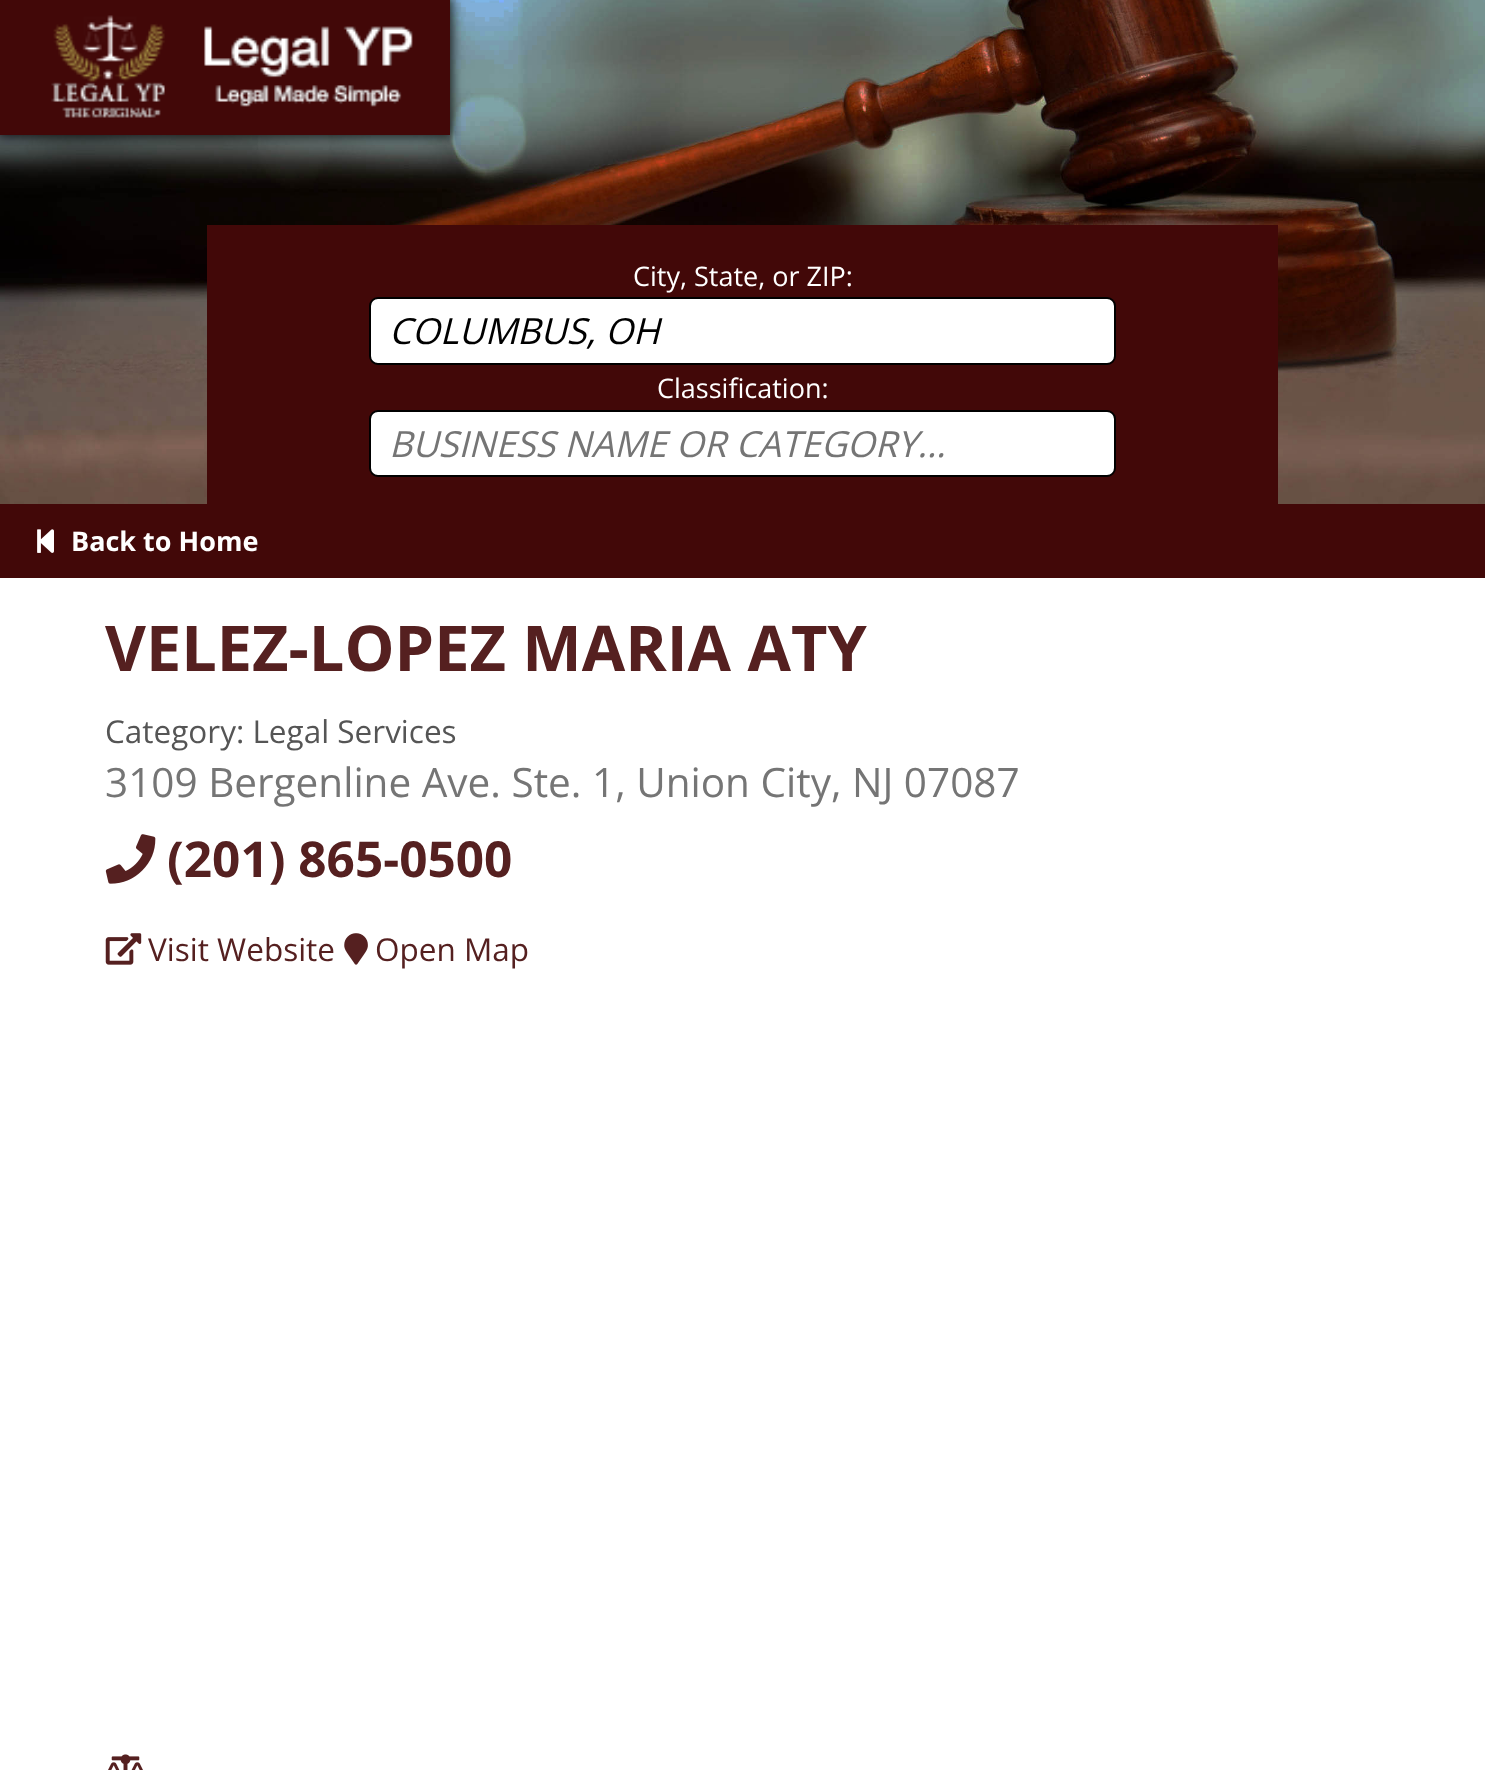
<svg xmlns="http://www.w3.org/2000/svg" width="1485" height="1770">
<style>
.a{font:27px Open Sans;fill:#fff}
.b{font:italic 36px Open Sans;fill:#000}
.c{font:italic 36px Open Sans;fill:#757575}
.d{font:bold 27px Open Sans;fill:#fff}
.e{font:bold 63px Open Sans;fill:#552020}
.f{font:31.5px Open Sans;fill:#555}
.g{font:40.5px Open Sans;fill:#757575}
.h{font:bold 49.5px Open Sans;fill:#552020}
.i{font:31.5px Open Sans;fill:#552020}
</style>
<rect width="100%" height="100%" fill="#fff"/>
<image href="1.png" x="0" y="0" width="1485" height="504"/>
<path fill="#000000bf" filter="blur(5.5px)" d="M-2 -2h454v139H-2z"/>
<path fill="#420808" d="M0 0h450v135H0z"/>
<image href="2.png" x="51" y="15" width="362" height="103"/>
<path fill="#420808" d="M207 225h1071v279H207z"/>
<rect fill="#fff" stroke="#000" stroke-width="2" x="370" y="298" width="745" height="66" rx="8"/>
<rect fill="#fff" stroke="#000" stroke-width="2" x="370" y="411" width="745" height="65" rx="8"/>
<path fill="#420808" d="M0 504h1485v74H0z"/>
<image href="3.png" x="37" y="529" width="17" height="24"/>
<image href="4.png" x="105" y="834" width="51" height="50"/>
<image href="5.png" x="105" y="933" width="37" height="32"/>
<image href="6.png" x="344" y="933" width="24" height="32"/>
<image href="7.png" x="108" y="1754" width="35" height="16"/>
<text class="a" x="633" y="286">City, State, or ZIP:</text>
<text class="b" x="389" y="344">COLUMBUS, OH</text>
<text class="a" x="657" y="398">Classification:</text>
<text class="c" x="389" y="457">BUSINESS NAME OR CATEGORY...</text>
<text class="d" x="71" y="551">Back to Home</text>
<text class="e" x="105" y="671">VELEZ-LOPEZ MARIA ATY</text>
<text class="f" x="105" y="743">Category: Legal Services</text>
<text class="g" x="105" y="797">3109 Bergenline Ave. Ste. 1, Union City, NJ 07087</text>
<text class="h" x="167" y="877">(201) 865-0500</text>
<text class="i" x="148" y="961">Visit Website</text>
<text class="i" x="375" y="961">Open Map</text>
</svg>
